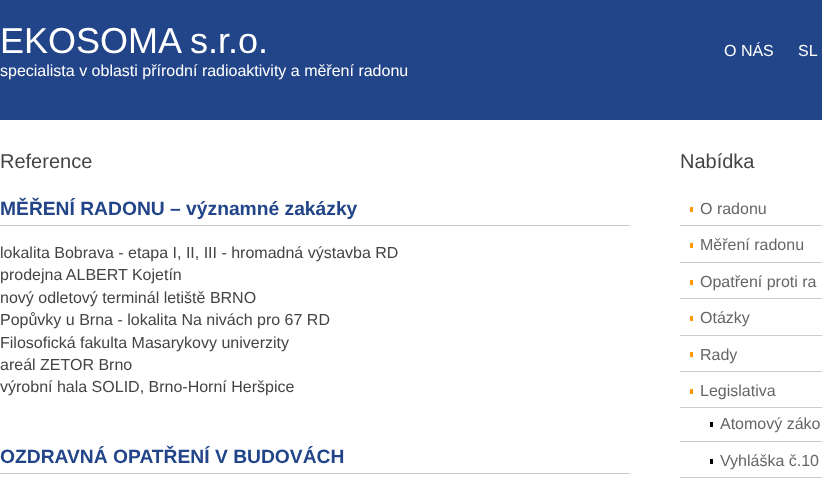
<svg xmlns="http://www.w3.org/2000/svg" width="822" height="478">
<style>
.a{font:36px Liberation Sans;fill:#fff}
.b{font:16px Liberation Sans;fill:#fff}
.c{font:20px Liberation Sans;fill:#444}
.d{font:bold 19.25px Liberation Sans;fill:#248}
.e{font:16px Liberation Sans;fill:#444}
.f{font:16px Liberation Sans;fill:#666}
</style>
<rect width="100%" height="100%" fill="#248"/>
<path fill="#fff" d="M0 120h822v358H0z"/>
<path fill="#ccc" d="M0 225h630v1H0z"/>
<path fill="#ccc" d="M0 473h630v1H0z"/>
<path fill="#f90" d="M690 207h3v5H690z"/>
<path fill="#ccc" d="M680 225h142v1H680z"/>
<path fill="#f90" d="M690 243h3v5H690z"/>
<path fill="#ccc" d="M680 262h142v1H680z"/>
<path fill="#f90" d="M690 280h3v5H690z"/>
<path fill="#ccc" d="M680 298h142v1H680z"/>
<path fill="#f90" d="M690 316h3v5H690z"/>
<path fill="#ccc" d="M680 335h142v1H680z"/>
<path fill="#f90" d="M690 352h3v5H690z"/>
<path fill="#ccc" d="M680 371h142v1H680z"/>
<path fill="#f90" d="M690 389h3v5H690z"/>
<path fill="#ccc" d="M680 407h142v1H680z"/>
<path fill="#000" d="M710 422h3v5H710z"/>
<path fill="#ccc" d="M680 441h142v1H680z"/>
<path fill="#000" d="M710 459h3v5H710z"/>
<path fill="#ccc" d="M680 477h142v1H680z"/>
<text class="a" x="0" y="53">EKOSOMA s.r.o.</text>
<text class="b" x="0" y="76">specialista v oblasti přírodní radioaktivity a měření radonu</text>
<text class="b" x="724" y="56">O NÁS</text>
<text class="b" x="798" y="56">SL</text>
<text class="c" x="0" y="168">Reference</text>
<text class="d" x="0" y="215">MĚŘENÍ RADONU – významné zakázky</text>
<text class="e" x="0" y="258">lokalita Bobrava - etapa I, II, III - hromadná výstavba RD</text>
<text class="e" x="0" y="280">prodejna ALBERT Kojetín</text>
<text class="e" x="0" y="303">nový odletový terminál letiště BRNO</text>
<text class="e" x="0" y="325">Popůvky u Brna - lokalita Na nivách pro 67 RD</text>
<text class="e" x="0" y="348">Filosofická fakulta Masarykovy univerzity</text>
<text class="e" x="0" y="370">areál ZETOR Brno</text>
<text class="e" x="0" y="392">výrobní hala SOLID, Brno-Horní Heršpice</text>
<text class="d" x="0" y="463">OZDRAVNÁ OPATŘENÍ V BUDOVÁCH</text>
<text class="c" x="680" y="168">Nabídka</text>
<text class="f" x="700" y="214">O radonu</text>
<text class="f" x="700" y="250">Měření radonu</text>
<text class="f" x="700" y="287">Opatření proti ra</text>
<text class="f" x="700" y="323">Otázky</text>
<text class="f" x="700" y="360">Rady</text>
<text class="f" x="700" y="396">Legislativa</text>
<text class="f" x="720" y="429">Atomový záko</text>
<text class="f" x="720" y="466">Vyhláška č.10</text>
</svg>
